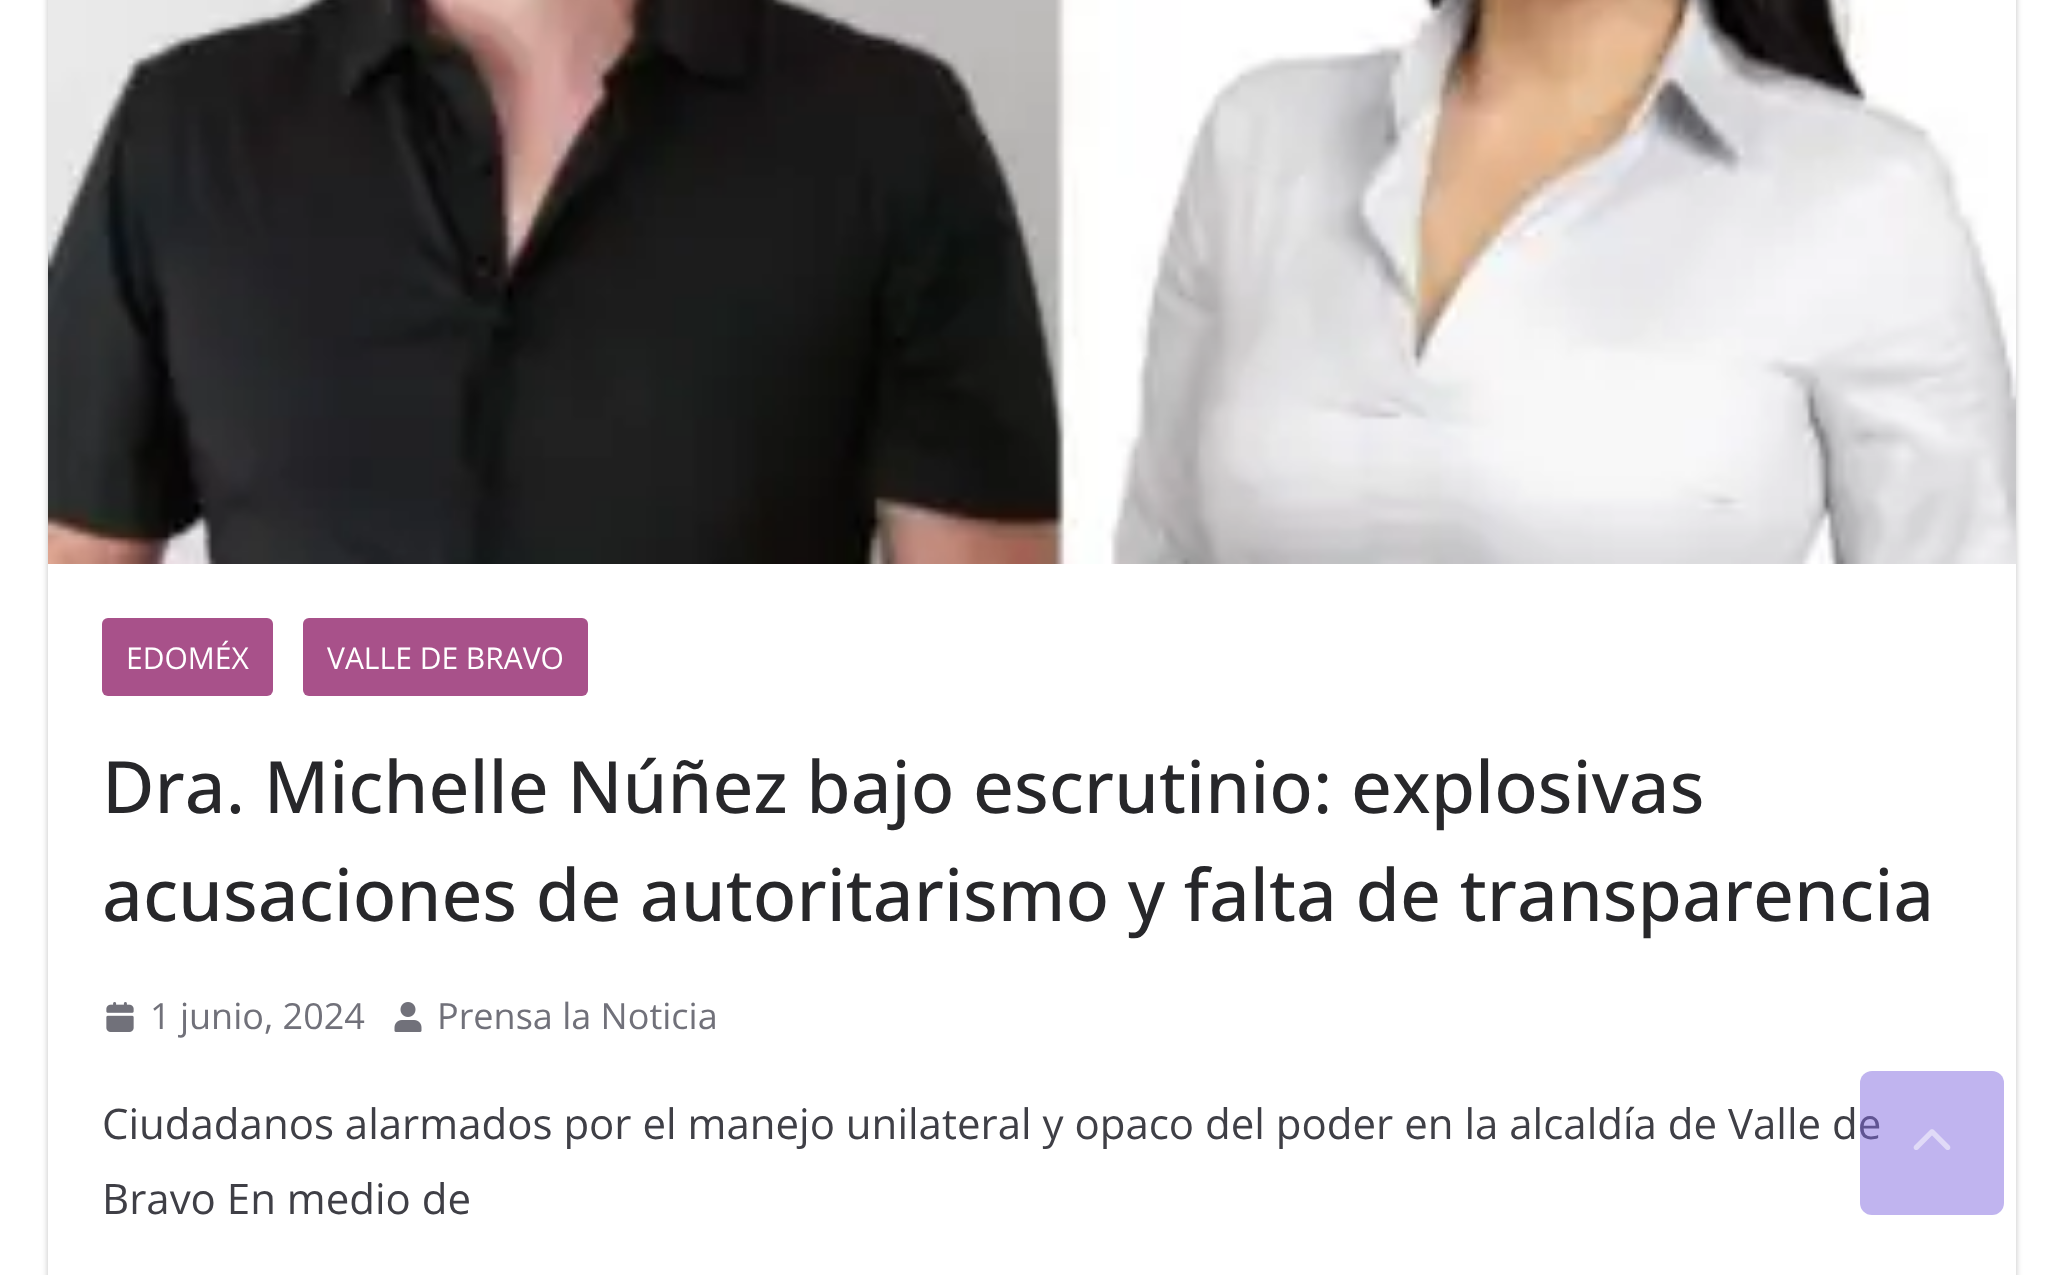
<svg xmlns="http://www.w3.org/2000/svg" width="2064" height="1275">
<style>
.a{font:30px Open Sans;fill:#fff}
.b{font:500 72px Open Sans;fill:#27272a}
.c{font:36px Open Sans;fill:#71717a}
.d{font:42px Open Sans;fill:#3f3f46}
</style>
<defs>
<clipPath id="clip1"><path d="M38 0h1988v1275h-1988zm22-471h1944c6.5 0 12 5.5 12 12v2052c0 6.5-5.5 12-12 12h-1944c-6.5 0-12-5.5-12-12v-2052c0-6.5 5.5-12 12-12z" clip-rule="evenodd"/></clipPath>
</defs>
<rect width="100%" height="100%" fill="#fff"/>
<g clip-path="url(#clip1)">
<rect fill="#0000003d" filter="blur(3px)" x="48" y="-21" width="1968" height="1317" rx="12"/>
</g>
<image href="1.png" x="48" y="0" width="1968" height="564"/>
<rect fill="#a8518a" x="102" y="618" width="171" height="78" rx="6"/>
<rect fill="#a8518a" x="303" y="618" width="285" height="78" rx="6"/>
<image href="2.png" x="106" y="1002" width="28" height="30"/>
<image href="3.png" x="394" y="1002" width="28" height="30"/>
<text class="a" x="126" y="669">EDOMÉX</text>
<text class="a" x="327" y="669">VALLE DE BRAVO</text>
<text class="b" x="102" y="813">Dra. Michelle Núñez bajo escrutinio: explosivas</text>
<text class="b" x="102" y="921">acusaciones de autoritarismo y falta de transparencia</text>
<text class="c" x="150" y="1029">1 junio, 2024</text>
<text class="c" x="437" y="1029">Prensa la Noticia</text>
<text class="d" x="102" y="1139">Ciudadanos alarmados por el manejo unilateral y opaco del poder en la alcaldía de Valle de</text>
<text class="d" x="102" y="1214">Bravo En medio de</text>
<rect fill="#8269df80" x="1860" y="1071" width="144" height="144" rx="12"/>
<image href="4.png" x="1913" y="1129" width="38" height="21"/>
</svg>
